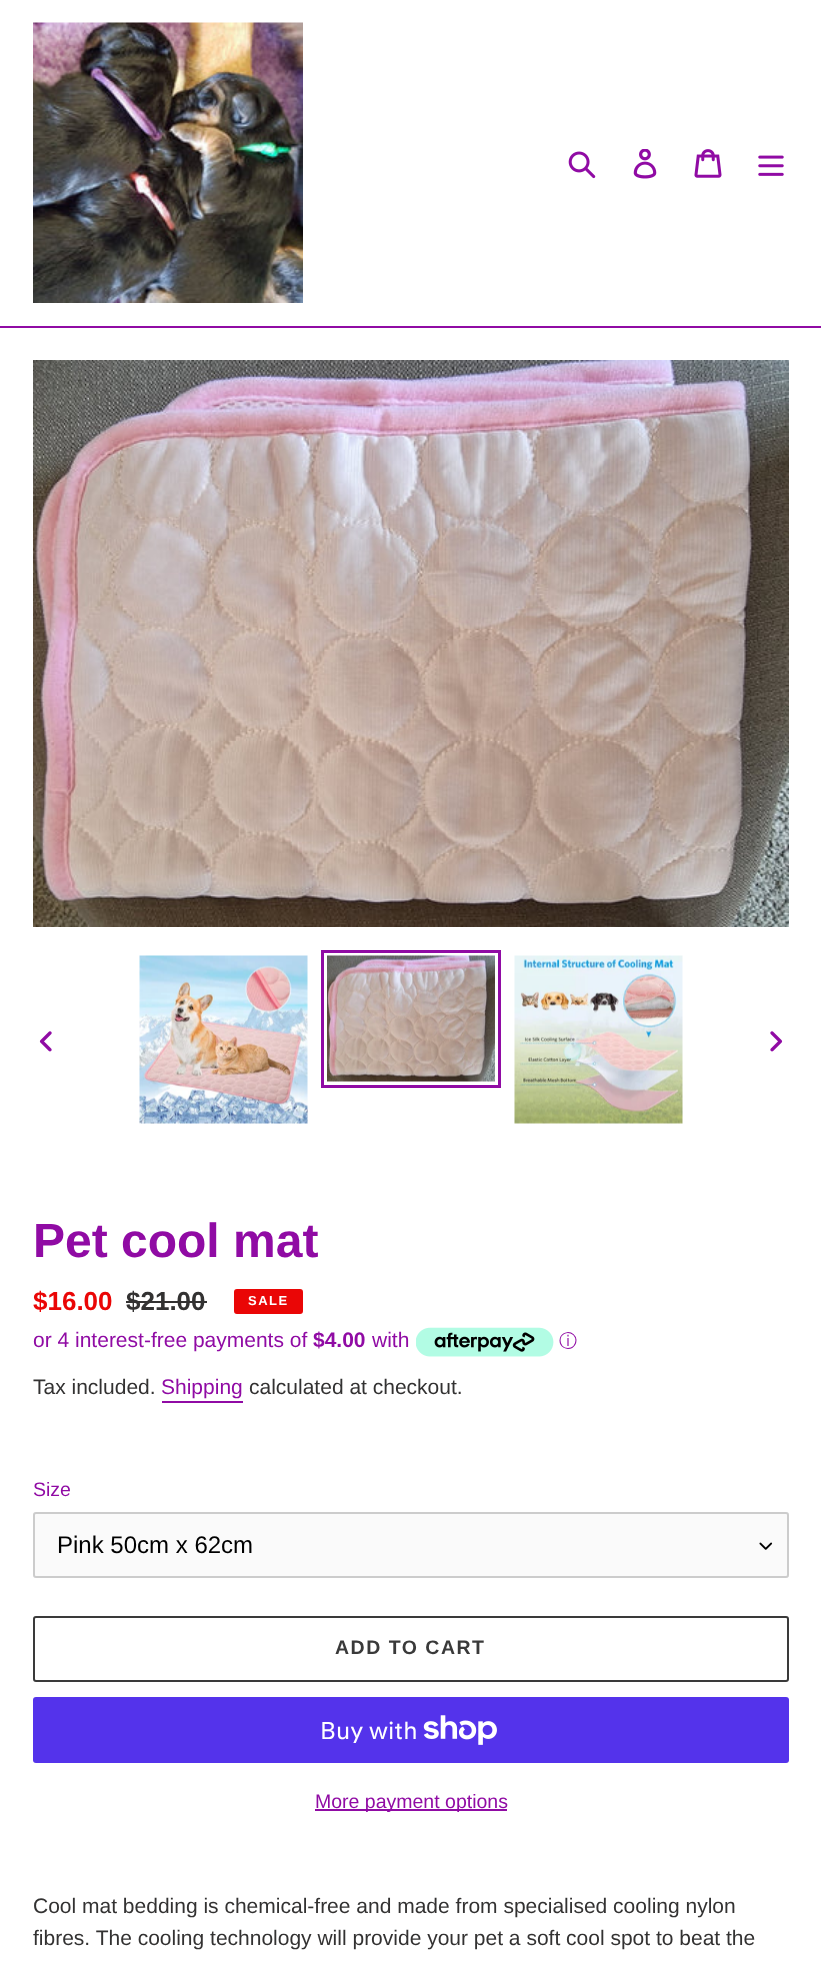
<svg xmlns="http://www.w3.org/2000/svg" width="821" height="1971">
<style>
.a{font:bold 48px Liberation Sans;fill:#900ba4}
.b{font:bold 26px Liberation Sans;fill:#ea0606}
.c{font:bold 26px Liberation Sans;fill:#333232}
.d{font:bold 13px Liberation Sans;letter-spacing:1.5px;fill:#fff}
.e{font:21px Liberation Sans;fill:#900ba4}
.f{font:bold 21px Liberation Sans;fill:#900ba4}
.g{font:500 18px WenQuanYi Zen Hei;fill:#900ba4}
.h{font:21px Liberation Sans;fill:#333232}
.i{font:19.5px Liberation Sans;fill:#900ba4}
.j{font:24px Liberation Sans;fill:#000}
.k{font:bold 19.5px Liberation Sans;letter-spacing:1.5px;fill:#3a3a3a}
.l{font:24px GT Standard;fill:#fff}
</style>
<rect width="100%" height="100%" fill="#fff"/>
<path fill="#900ba4" d="M0 326h821v2H0z"/>
<image href="1.png" x="33" y="22" width="270" height="281"/>
<image href="2.png" x="568" y="151" width="28" height="28"/>
<image href="3.png" x="633" y="149" width="24" height="30"/>
<image href="4.png" x="694" y="149" width="28" height="29"/>
<image href="5.png" x="758" y="155" width="26" height="21"/>
<image href="6.png" x="33" y="360" width="756" height="567"/>
<image href="7.png" x="39" y="1031" width="13" height="21"/>
<image href="8.png" x="139" y="955" width="169" height="169"/>
<path fill="none" stroke="#900ba4" stroke-width="3" d="M322.5 951.5h177v135H322.5z"/>
<image href="9.png" x="327" y="955" width="168" height="127"/>
<image href="10.png" x="514" y="955" width="169" height="169"/>
<image href="11.png" x="770" y="1031" width="13" height="21"/>
<path fill="#333232" d="M126 1301h81v2H126z"/>
<rect fill="#ea0606" stroke="#ea0606" stroke-width="2" x="235" y="1290" width="67" height="23" rx="2"/>
<image href="12.png" x="416" y="1327" width="138" height="30"/>
<path fill="#900ba4" d="M162 1401h81v2H162z"/>
<rect fill="#fafafa" x="33" y="1512" width="756" height="66" rx="3"/>
<image href="13.png" x="759" y="1542" width="14" height="8"/>
<rect fill="none" stroke="#ccc" stroke-width="2" x="34" y="1513" width="754" height="64" rx="2"/>
<rect fill="none" stroke="#3a3a3a" stroke-width="2" x="34" y="1617" width="754" height="64" rx="2"/>
<rect fill="#5433eb" x="33" y="1697" width="756" height="66" rx="3"/>
<image href="14.png" x="423" y="1715" width="74" height="30"/>
<path fill="#900ba4" d="M315 1809h192v2H315z"/>
<text class="a" x="33" y="1257">Pet cool mat</text>
<text class="b" x="33" y="1310">$16.00</text>
<text class="c" x="126" y="1310">$21.00</text>
<text class="d" x="248" y="1305">SALE</text>
<text class="e" x="33" y="1347">or 4 interest-free payments of</text>
<text class="f" x="313" y="1347">$4.00</text>
<text class="e" x="372" y="1347">with</text>
<text class="g" x="559" y="1347">ⓘ</text>
<text class="h" x="33" y="1394">Tax included.</text>
<text class="e" x="161" y="1394">Shipping</text>
<text class="h" x="249" y="1394">calculated at checkout.</text>
<text class="i" x="33" y="1496">Size</text>
<text class="j" x="57" y="1553">Pink 50cm x 62cm</text>
<text class="k" x="335" y="1654">ADD TO CART</text>
<text class="l" x="320" y="1739">Buy with</text>
<text class="i" x="315" y="1808">More payment options</text>
<text class="h" x="33" y="1913">Cool mat bedding is chemical-free and made from specialised cooling nylon</text>
<text class="h" x="33" y="1945">fibres. The cooling technology will provide your pet a soft cool spot to beat the</text>
</svg>
